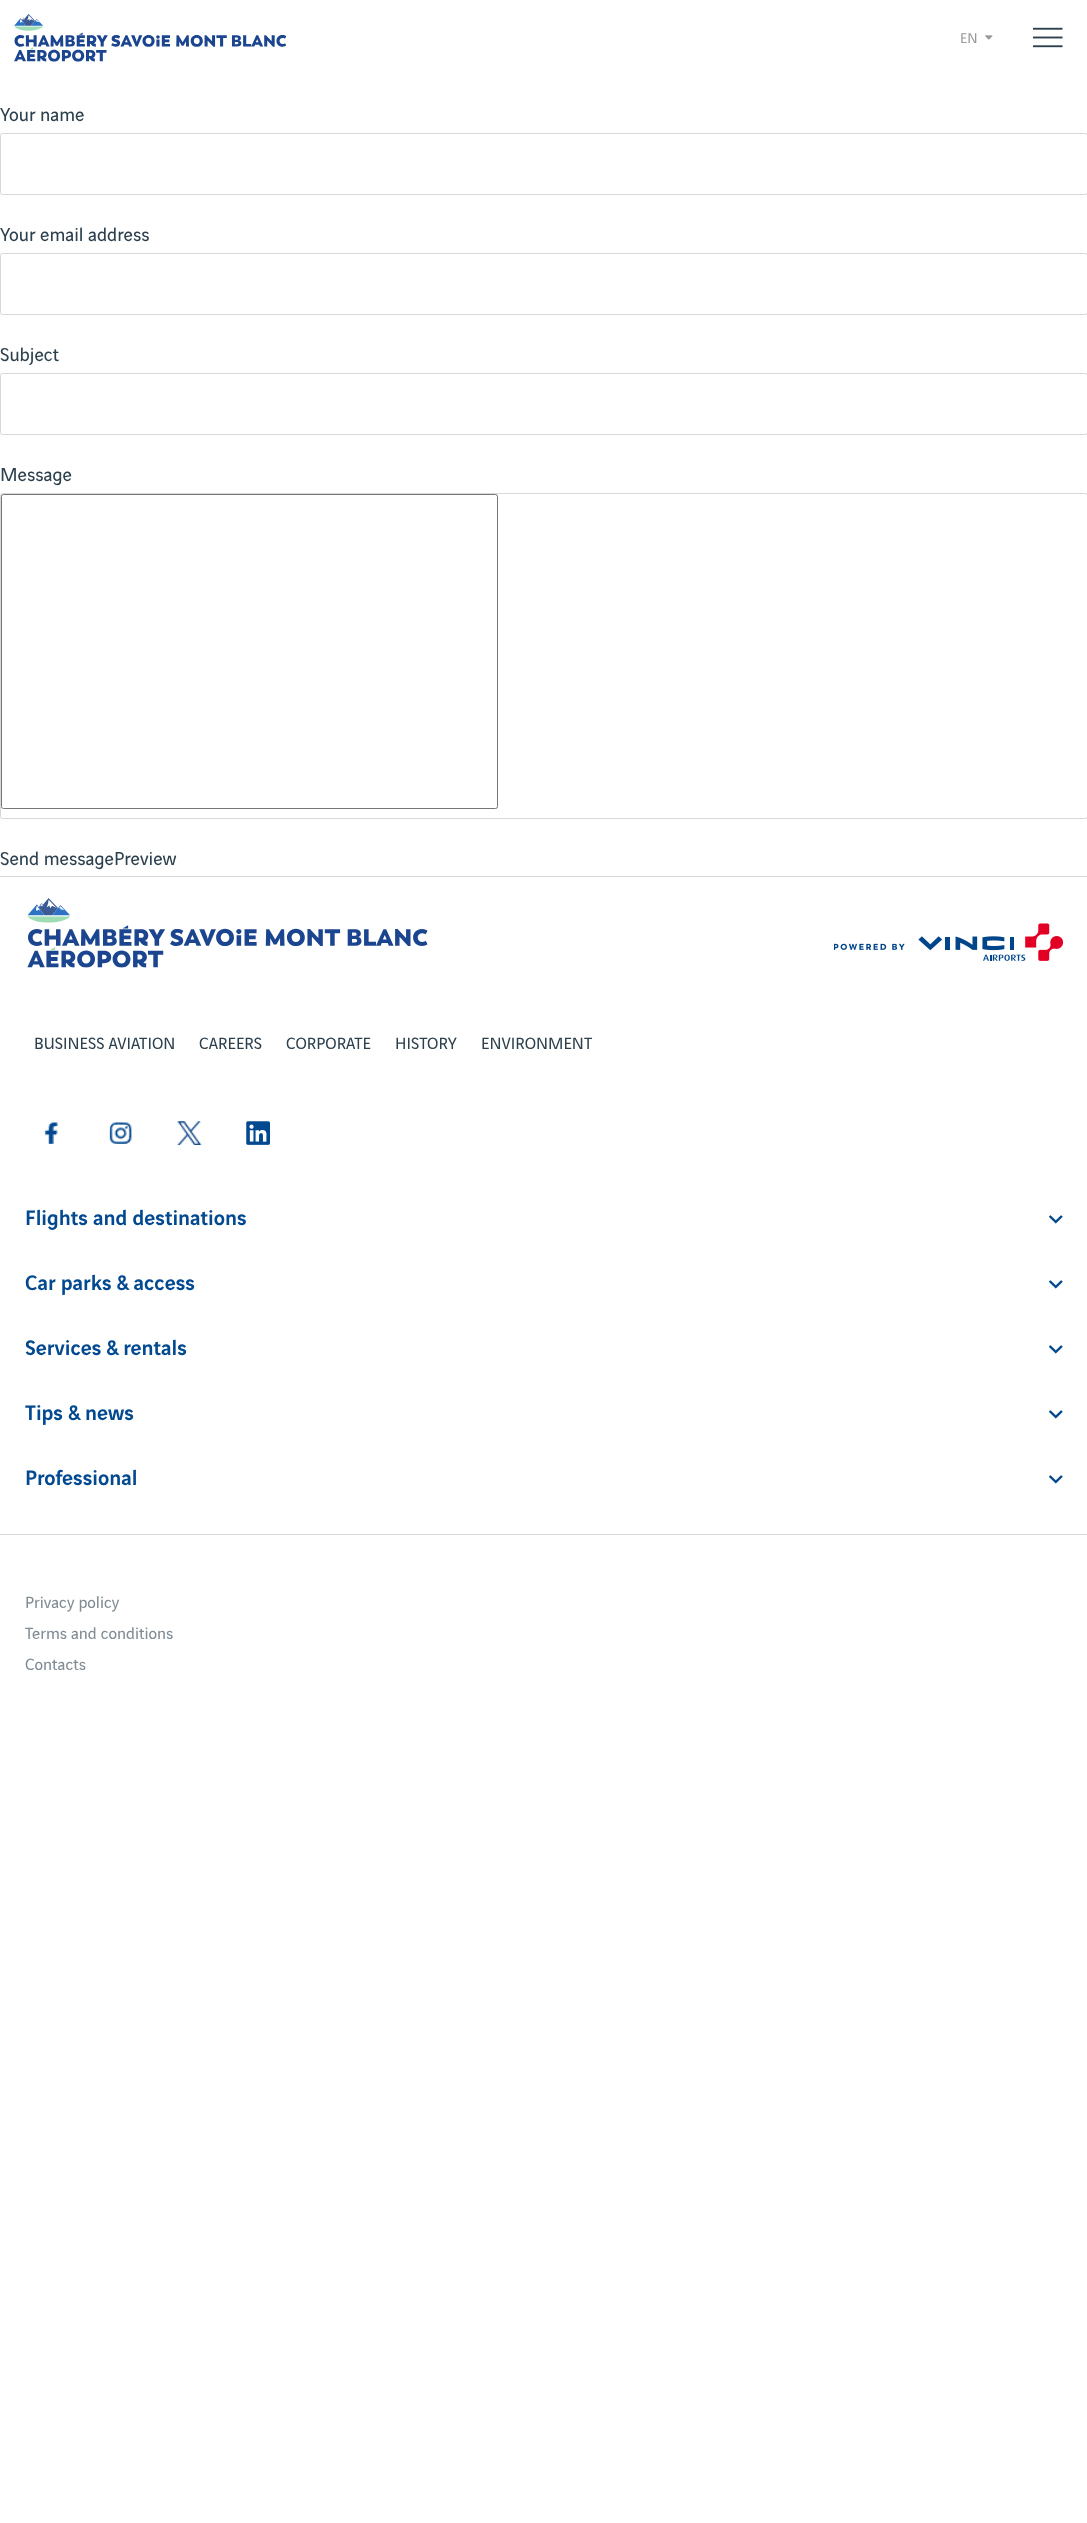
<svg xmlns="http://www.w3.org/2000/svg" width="1087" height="2523">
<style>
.a{font:15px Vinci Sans;fill:#999}
.b{font:20px Vinci Sans;fill:#2d404e}
.c{font:17.5px Vinci Sans;fill:#2d404e}
.d{font:500 22.5px Vinci Sans;fill:#024990}
.e{font:17.5px Vinci Sans;fill:#818c95}
</style>
<rect width="100%" height="100%" fill="#fff"/>
<image href="1.png" x="14" y="14" width="272" height="48"/>
<image href="2.png" x="985" y="35" width="8" height="5"/>
<image href="3.png" x="1033" y="27" width="30" height="21"/>
<rect fill="none" stroke="#d5d9db" x="0.5" y="133.5" width="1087" height="61" rx="2"/>
<rect fill="none" stroke="#d5d9db" x="0.5" y="253.5" width="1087" height="61" rx="2"/>
<rect fill="none" stroke="#d5d9db" x="0.5" y="373.5" width="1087" height="61" rx="2"/>
<rect fill="none" stroke="#d5d9db" x="0.5" y="493.5" width="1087" height="325" rx="2"/>
<rect fill="none" stroke="#767676" x="1.5" y="494.5" width="496" height="314" rx="2"/>
<path fill="#d5d9db" d="M0 876h1087v1H0z"/>
<image href="4.png" x="27" y="898" width="401" height="70"/>
<image href="5.png" x="834" y="923" width="229" height="38"/>
<image href="6.png" x="44" y="1122" width="14" height="22"/>
<image href="7.png" x="109" y="1122" width="23" height="22"/>
<image href="8.png" x="177" y="1121" width="25" height="24"/>
<image href="9.png" x="246" y="1121" width="24" height="24"/>
<image href="10.png" x="1049" y="1215" width="14" height="9"/>
<image href="10.png" x="1049" y="1280" width="14" height="9"/>
<image href="10.png" x="1049" y="1345" width="14" height="9"/>
<image href="10.png" x="1049" y="1410" width="14" height="9"/>
<image href="10.png" x="1049" y="1475" width="14" height="9"/>
<path fill="#d5d9db" d="M0 1534h1087v1H0z"/>
<text class="a" x="960" y="43">EN</text>
<text class="b" x="0" y="121">Your name</text>
<text class="b" x="0" y="241">Your email address</text>
<text class="b" x="0" y="361">Subject</text>
<text class="b" x="0" y="481">Message</text>
<text class="b" x="0" y="865">Send messagePreview</text>
<text class="c" x="34" y="1049">BUSINESS AVIATION</text>
<text class="c" x="199" y="1049">CAREERS</text>
<text class="c" x="286" y="1049">CORPORATE</text>
<text class="c" x="395" y="1049">HISTORY</text>
<text class="c" x="481" y="1049">ENVIRONMENT</text>
<text class="d" x="25" y="1225">Flights and destinations</text>
<text class="d" x="25" y="1290">Car parks &amp; access</text>
<text class="d" x="25" y="1355">Services &amp; rentals</text>
<text class="d" x="25" y="1420">Tips &amp; news</text>
<text class="d" x="25" y="1485">Professional</text>
<text class="e" x="25" y="1608">Privacy policy</text>
<text class="e" x="25" y="1639">Terms and conditions</text>
<text class="e" x="25" y="1670">Contacts</text>
</svg>
